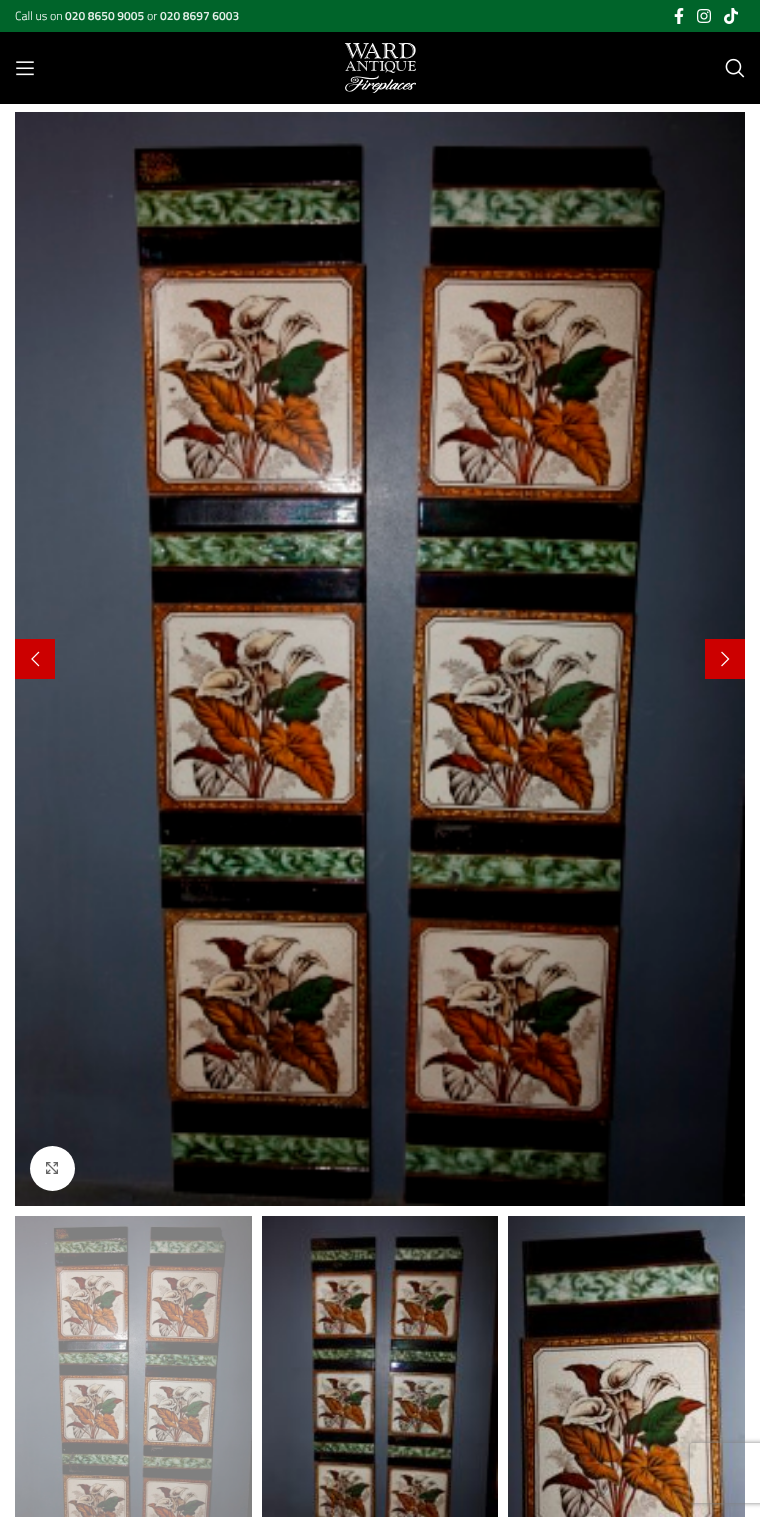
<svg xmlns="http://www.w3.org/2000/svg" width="760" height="1517">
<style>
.a{font:300 12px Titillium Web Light;fill:#fff}
.b{font:600 12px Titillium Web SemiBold;fill:#e6f0ea}
</style>
<defs>
<clipPath id="clip1"><path d="M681 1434h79v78h-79zm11 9h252c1 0 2 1 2 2v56c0 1-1 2-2 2h-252c-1 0-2-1-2-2v-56c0-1 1-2 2-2z" clip-rule="evenodd"/></clipPath>
</defs>
<rect width="100%" height="100%" fill="#fff"/>
<path fill="#00642a" d="M0 0h760v32H0z"/>
<image href="1.png" x="674" y="8" width="10" height="16"/>
<image href="2.png" x="697" y="9" width="14" height="14"/>
<image href="3.png" x="724" y="8" width="14" height="16"/>
<path fill="#000" d="M0 32h760v72H0z"/>
<image href="4.png" x="16" y="61" width="18" height="15"/>
<image href="5.png" x="344" y="43" width="72" height="50"/>
<image href="6.png" x="725" y="58" width="20" height="20"/>
<image href="7.png" x="15" y="112" width="730" height="1094"/>
<path fill="#c00" d="M15 639h40v40H15z"/>
<image href="8.png" x="31" y="651" width="9" height="16"/>
<path fill="#c00" d="M705 639h40v40H705z"/>
<image href="9.png" x="721" y="651" width="9" height="16"/>
<circle fill="#fff" cx="52.5" cy="1168.5" r="22.5"/>
<image href="10.png" x="46" y="1162" width="12" height="12"/>
<image href="11.png" x="15" y="1216" width="237" height="301"/>
<image href="12.png" x="262" y="1216" width="236" height="301"/>
<image href="13.png" x="508" y="1216" width="237" height="301"/>
<g clip-path="url(#clip1)">
<rect fill="#808080" filter="blur(2.5px)" x="690" y="1443" width="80" height="60" rx="2"/>
</g>
<text class="a" x="15" y="20">Call us on</text>
<text class="b" x="65" y="20">020 8650 9005</text>
<text class="a" x="147" y="20">or</text>
<text class="b" x="160" y="20">020 8697 6003</text>
</svg>
